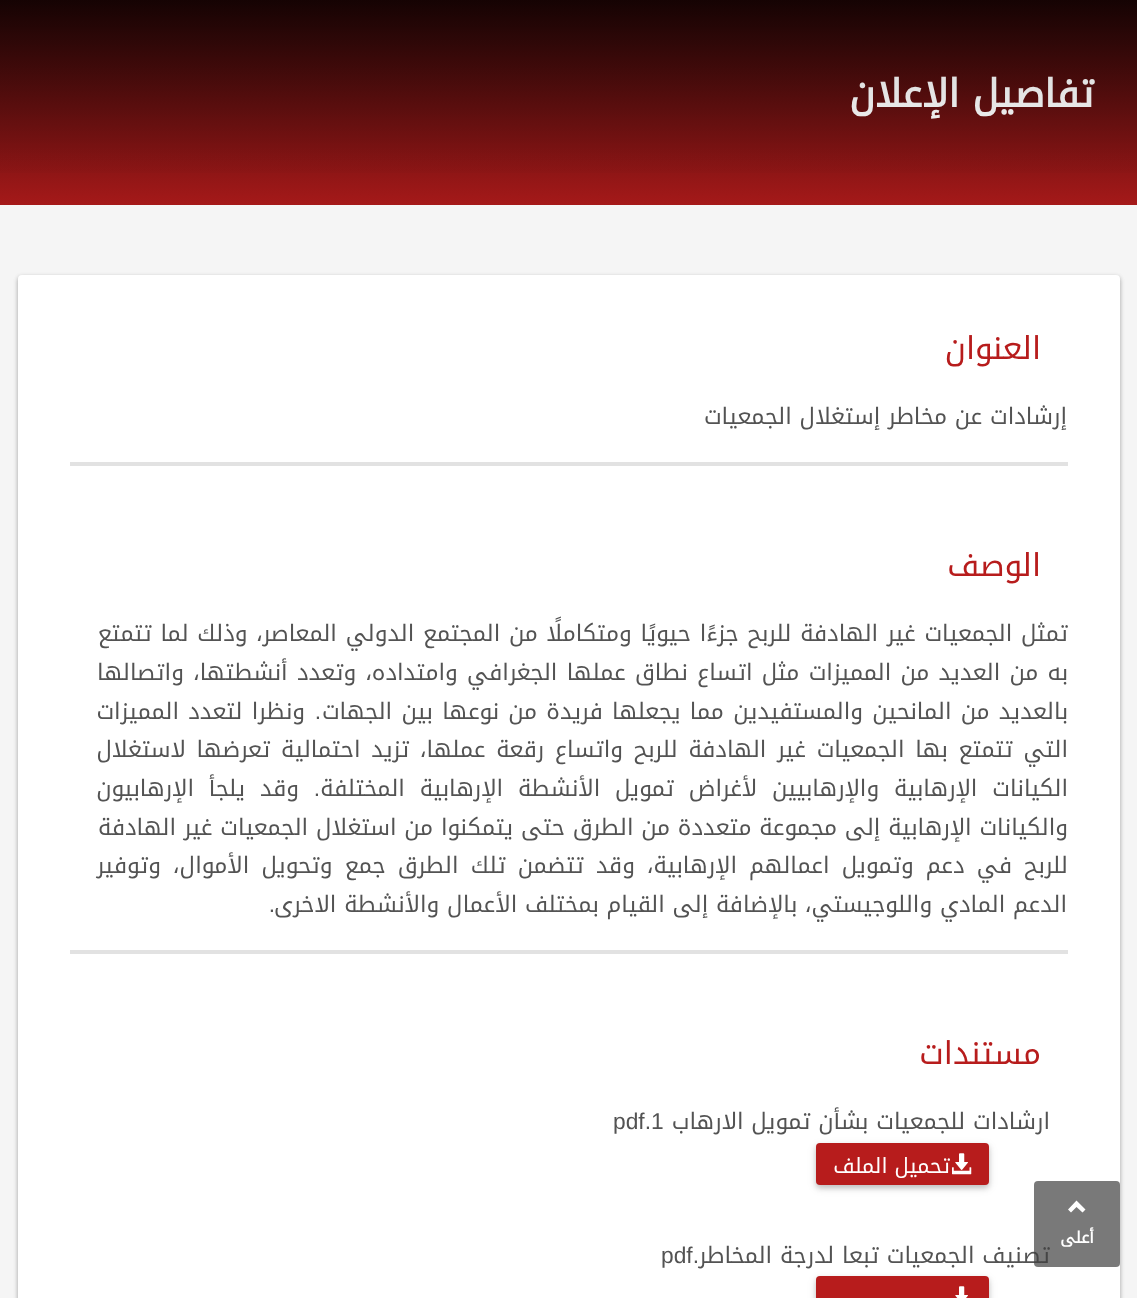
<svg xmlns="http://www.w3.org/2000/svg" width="1137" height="1298">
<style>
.a{font:bold 38.5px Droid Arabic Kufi;direction:rtl;fill:#fff}
.b{font:31.5px Droid Arabic Kufi;direction:rtl;fill:#b71c1c}
.c{font:22.75px Droid Arabic Kufi;direction:rtl;fill:#535353}
.d{font:22.75px Liberation Sans;direction:rtl;fill:#535353}
.e{font:22.75px Liberation Sans;fill:#535353}
.f{font:21px Droid Arabic Kufi;direction:rtl;fill:#fff}
.g{font:bold 16px Droid Arabic Kufi;direction:rtl;fill:#fff}
</style>
<defs>
<linearGradient id="g1" gradientUnits="userSpaceOnUse" x1="569" y1="205" x2="569" y2="-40"><stop offset="0" stop-color="#a51919"/><stop offset="1" stop-color="#000"/></linearGradient>
<linearGradient id="g2" gradientUnits="userSpaceOnUse" x1="569" y1="-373" x2="569" y2="193"><stop offset="0" stop-color="#000" stop-opacity="0.6"/><stop offset="1" stop-color="#000" stop-opacity="0"/></linearGradient>
</defs>
<rect width="100%" height="100%" fill="#f5f5f5"/>
<path fill="url(#g1)" d="M0 0h1137v205H0z"/>
<rect fill="#0000003d" filter="blur(2px)" x="18" y="277" width="1102" height="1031" rx="4"/>
<rect fill="#0000001f" filter="blur(2.5px)" x="18" y="277" width="1102" height="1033" rx="4"/>
<rect fill="#fff" x="18" y="275" width="1102" height="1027" rx="4"/>
<path fill="#e2e2e2" d="M70 462h998v4H70z"/>
<path fill="#e2e2e2" d="M70 950h998v4H70z"/>
<rect fill="#0000001f" filter="blur(4.5px)" x="816" y="1146" width="173" height="42" rx="4"/>
<rect fill="#00000029" filter="blur(2.5px)" x="816" y="1146" width="173" height="42" rx="4"/>
<rect fill="#b71c1c" x="816" y="1143" width="173" height="42" rx="4"/>
<image href="1.png" x="952" y="1153" width="20" height="22"/>
<rect fill="#0000001f" filter="blur(4.5px)" x="816" y="1279" width="173" height="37" rx="4"/>
<rect fill="#00000029" filter="blur(2.5px)" x="816" y="1279" width="173" height="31" rx="4"/>
<rect fill="#b71c1c" x="816" y="1276" width="173" height="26" rx="4"/>
<image href="2.png" x="955" y="1286" width="13" height="12"/>
<text class="a" x="1094" y="107">تفاصيل الإعلان</text>
<path fill="url(#g2)" d="M0 0h1137v173H0z"/>
<text class="b" x="1041" y="359">العنوان</text>
<text class="c" x="1067" y="424">إرشادات عن مخاطر إستغلال الجمعيات</text>
<text class="b" x="1041" y="576">الوصف</text>
<text class="c" x="1068" y="641" word-spacing="1">تمثل الجمعيات غير الهادفة للربح جزءًا حيويًا ومتكاملًا من المجتمع الدولي المعاصر، وذلك لما تتمتع</text>
<text class="c" x="1068" y="680" word-spacing="1.5">به من العديد من المميزات مثل اتساع نطاق عملها الجغرافي وامتداده، وتعدد أنشطتها، واتصالها</text>
<text class="c" x="1068" y="719" word-spacing="1.5">بالعديد من المانحين والمستفيدين مما يجعلها فريدة من نوعها بين الجهات</text>
<text class="d" x="321" y="719">.</text>
<text class="c" x="305" y="719" word-spacing="1.5">ونظرا لتعدد المميزات</text>
<text class="c" x="1068" y="757" word-spacing="3">التي تتمتع بها الجمعيات غير الهادفة للربح واتساع رقعة عملها، تزيد احتمالية تعرضها لاستغلال</text>
<text class="c" x="1068" y="796" word-spacing="7">الكيانات الإرهابية والإرهابيين لأغراض تمويل الأنشطة الإرهابية المختلفة</text>
<text class="d" x="320" y="796">.</text>
<text class="c" x="299" y="796" word-spacing="7">وقد يلجأ الإرهابيون</text>
<text class="c" x="1068" y="835">والكيانات الإرهابية إلى مجموعة متعددة من الطرق حتى يتمكنوا من استغلال الجمعيات غير الهادفة</text>
<text class="c" x="1068" y="873" word-spacing="4.4">للربح في دعم وتمويل اعمالهم الإرهابية، وقد تتضمن تلك الطرق جمع وتحويل الأموال، وتوفير</text>
<text class="c" x="1067" y="912">الدعم المادي واللوجيستي، بالإضافة إلى القيام بمختلف الأعمال والأنشطة الاخرى</text>
<text class="d" x="275" y="912">.</text>
<text class="b" x="1041" y="1064">مستندات</text>
<text class="c" x="1050" y="1129">ارشادات للجمعيات بشأن تمويل الارهاب</text>
<text class="e" x="613" y="1129">pdf.1</text>
<text class="f" x="950" y="1173">تحميل الملف</text>
<text class="c" x="1050" y="1263">تصنيف الجمعيات تبعا لدرجة المخاطر</text>
<text class="d" x="699" y="1263">.</text>
<text class="e" x="661" y="1263">pdf</text>
<rect fill="#404040b3" x="1034" y="1181" width="86" height="86" rx="4"/>
<path fill="#fff" d="M1076.5 1200.5l9 9l-3 3l-6-5.5l-5.5 5.5l-3-3z"/>
<text class="g" x="1094" y="1243">أعلى</text>
</svg>
